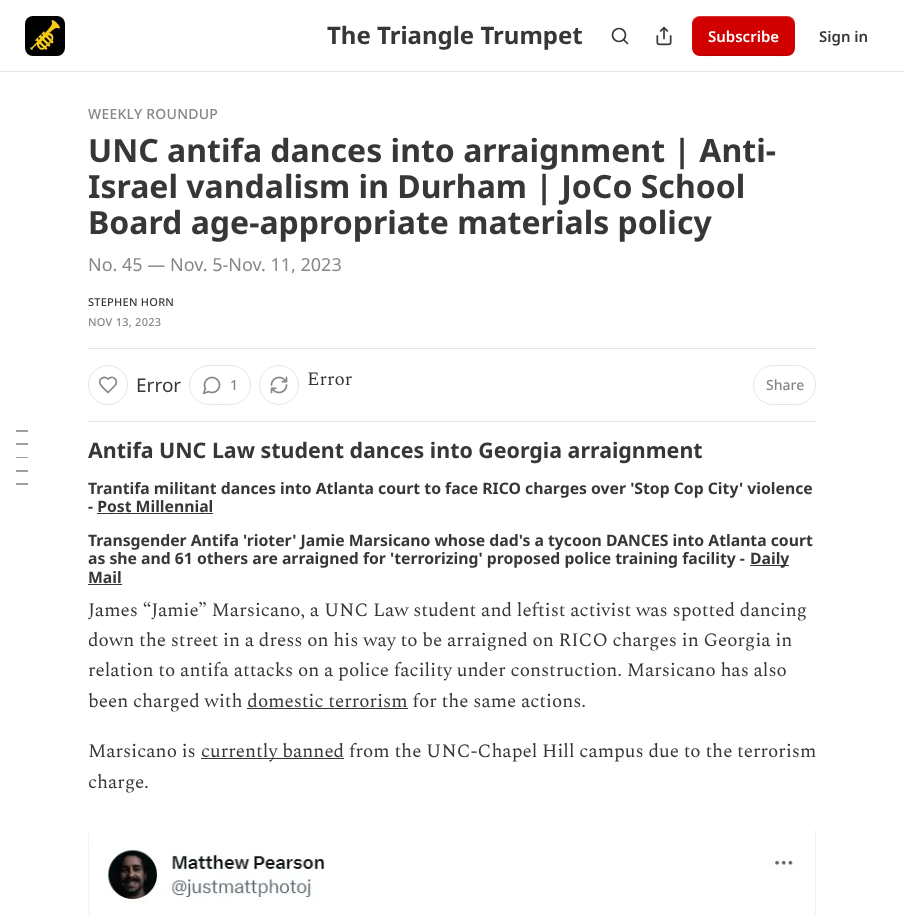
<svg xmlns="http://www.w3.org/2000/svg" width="904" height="915">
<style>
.a{font:bold 24px Noto Sans;fill:#363737}
.b{font:600 15px Noto Sans;fill:#fff}
.c{font:600 15px Noto Sans;fill:#363737}
.d{font:500 14px Noto Sans;letter-spacing:0.25px;fill:#868787}
.e{font:bold 32px Noto Sans;fill:#363737}
.f{font:18px Noto Sans;fill:#868787}
.g{font:500 11px Noto Sans;letter-spacing:0.25px;fill:#363737}
.h{font:500 11px Noto Sans;letter-spacing:0.25px;fill:#868787}
.i{font:19px Noto Sans;fill:#363737}
.j{font:500 14px Noto Sans;fill:#868787}
.k{font:19px Spectral;fill:#363737}
.l{font:bold 21.4px Noto Sans;fill:#363737}
.m{font:bold 15.75px Noto Sans;fill:#363737}
</style>
<rect width="100%" height="100%" fill="#fff"/>
<path fill="#e6e6e6" d="M0 71h904v1H0z"/>
<image href="1.png" x="25" y="16" width="40" height="40"/>
<circle fill="none" stroke="#363737" stroke-width="1.7" cx="619" cy="35" r="6.5"/>
<path fill="none" stroke="#363737" stroke-width="1.7" stroke-linecap="round" stroke-linejoin="round" d="M627.5 43.5l-3.5-3.5"/>
<image href="2.png" x="656" y="26" width="16" height="20"/>
<rect fill="#d10000" x="692" y="16" width="103" height="40" rx="8"/>
<path fill="#0000001a" d="M692 47c0 12 14 9 22 9h58c9 0 23 3 23-9c0 4-4 8-8 8h-87c-4 0-8-4-8-8z"/>
<path fill="#ffffff33" d="M700 17h87c4 0 8 4 8 8c0-12-14-9-23-9h-58c-8 0-22-3-22 9c0-4 4-8 8-8z"/>
<path fill="#e6e6e6" d="M88 348h728v1H88z"/>
<path fill="#e6e6e6" d="M88 421h728v1H88z"/>
<circle fill="none" stroke="#e6e6e6" cx="108" cy="385" r="19.5"/>
<path fill="none" stroke="#868787" stroke-width="1.7" stroke-linecap="round" stroke-linejoin="round" d="M114 386.5c6-6-1-12-6-7.5c-3.5-3.5-9.5-.5-8 4.5c1 3 6 7 8 9z"/>
<rect fill="none" stroke="#e6e6e6" x="189.5" y="365.5" width="61" height="39" rx="19.5"/>
<image href="3.png" x="202" y="376" width="19" height="19"/>
<circle fill="none" stroke="#e6e6e6" cx="279" cy="385" r="19.5"/>
<image href="4.png" x="270" y="376" width="18" height="18"/>
<rect fill="none" stroke="#e6e6e6" x="753.5" y="365.5" width="62" height="39" rx="19.5"/>
<path fill="#9e9f9f" d="M16 430h12v2H16z"/>
<path fill="#9e9f9f" d="M16 443h12v2H16z"/>
<path fill="#9e9f9f" d="M16 457h12v1H16z"/>
<path fill="#9e9f9f" d="M16 470h12v2H16z"/>
<path fill="#9e9f9f" d="M16 483h12v2H16z"/>
<path fill="#363737" d="M97 513h116v1H97z"/>
<path fill="#363737" d="M750 565h39v1H750z"/>
<path fill="#363737" d="M88 584h34v1H88z"/>
<path fill="#363737" d="M247 708h161v1H247z"/>
<path fill="#363737" d="M201 758h143v1H201z"/>
<image href="5.png" x="88" y="830" width="728" height="85"/>
<text class="a" x="327" y="44">The Triangle Trumpet</text>
<text class="b" x="708" y="42">Subscribe</text>
<text class="c" x="819" y="42">Sign in</text>
<text class="d" x="88" y="119">WEEKLY ROUNDUP</text>
<text class="e" x="88" y="162">UNC antifa dances into arraignment | Anti-</text>
<text class="e" x="88" y="198">Israel vandalism in Durham | JoCo School</text>
<text class="e" x="88" y="234">Board age-appropriate materials policy</text>
<text class="f" x="88" y="271">No. 45 — Nov. 5-Nov. 11, 2023</text>
<text class="g" x="88" y="306">STEPHEN HORN</text>
<text class="h" x="88" y="326">NOV 13, 2023</text>
<text class="i" x="136" y="392">Error</text>
<text class="j" x="230" y="390">1</text>
<text class="k" x="307" y="385">Error</text>
<text class="j" x="766" y="390">Share</text>
<text class="l" x="88" y="458">Antifa UNC Law student dances into Georgia arraignment</text>
<text class="m" x="88" y="494">Trantifa militant dances into Atlanta court to face RICO charges over 'Stop Cop City' violence</text>
<text class="m" x="88" y="512">- Post Millennial</text>
<text class="m" x="88" y="546">Transgender Antifa 'rioter' Jamie Marsicano whose dad's a tycoon DANCES into Atlanta court</text>
<text class="m" x="88" y="564">as she and 61 others are arraigned for 'terrorizing' proposed police training facility -</text>
<text class="m" x="750" y="564">Daily</text>
<text class="m" x="88" y="583">Mail</text>
<text class="k" x="88" y="616">James “Jamie” Marsicano, a UNC Law student and leftist activist was spotted dancing</text>
<text class="k" x="88" y="646">down the street in a dress on his way to be arraigned on RICO charges in Georgia in</text>
<text class="k" x="88" y="676">relation to antifa attacks on a police facility under construction. Marsicano has also</text>
<text class="k" x="88" y="707">been charged with domestic terrorism for the same actions.</text>
<text class="k" x="88" y="757">Marsicano is</text>
<text class="k" x="201" y="757">currently banned from the UNC-Chapel Hill campus due to the terrorism</text>
<text class="k" x="88" y="788">charge.</text>
</svg>
